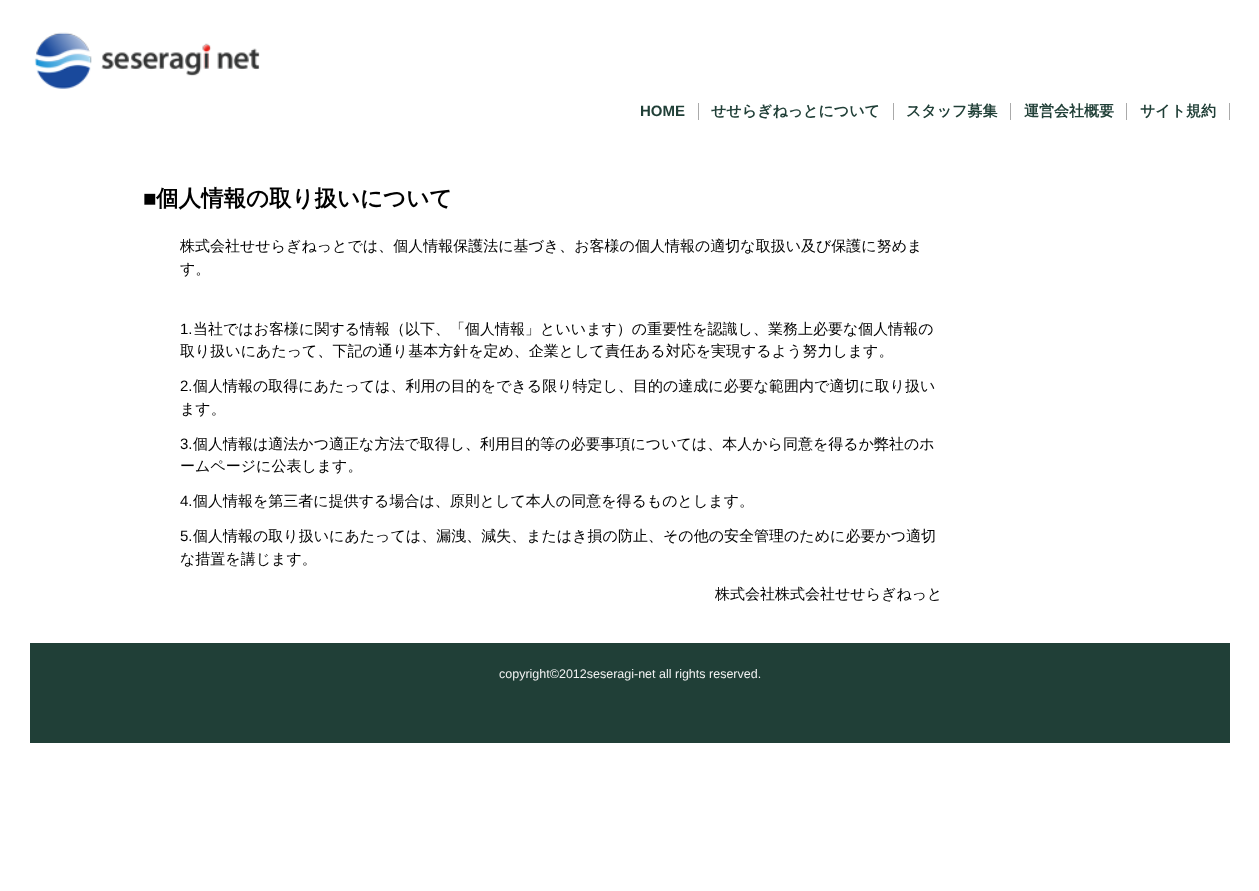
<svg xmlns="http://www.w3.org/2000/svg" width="1259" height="891">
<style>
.a{font:bold 15px Liberation Sans;fill:#203f37}
.b{font:bold 15px WenQuanYi Zen Hei;fill:#203f37}
.c{font:bold 22.5px Liberation Sans;fill:#000}
.d{font:bold 22.5px WenQuanYi Zen Hei;fill:#000}
.e{font:500 15px WenQuanYi Zen Hei;fill:#000}
.f{font:15px Liberation Sans;fill:#000}
.g{font:12.5px Liberation Sans;fill:#f0f1f1}
</style>
<rect width="100%" height="100%" fill="#fff"/>
<image href="1.png" x="34" y="32" width="226" height="57"/>
<path fill="#aaa" d="M698 103h1v17H698z"/>
<path fill="#aaa" d="M893 103h1v17H893z"/>
<path fill="#aaa" d="M1010 103h1v17H1010z"/>
<path fill="#aaa" d="M1126 103h1v17H1126z"/>
<path fill="#aaa" d="M1229 103h1v17H1229z"/>
<path fill="#203f37" d="M30 643h1200v100H30z"/>
<text class="a" x="640" y="116">HOME</text>
<text class="b" x="711" y="116">せせらぎねっとについて</text>
<text class="b" x="906" y="116">スタッフ募集</text>
<text class="b" x="1024" y="116">運営会社概要</text>
<text class="b" x="1140" y="116">サイト規約</text>
<text class="c" x="143" y="206">■</text>
<text class="d" x="156" y="206">個人情報の取り扱いについて</text>
<text class="e" x="180" y="251">株式会社せせらぎねっとでは、個人情報保護法に基づき、お客様の個人情報の適切な取扱い及び保護に努めま</text>
<text class="e" x="180" y="274">す。</text>
<text class="f" x="180" y="334">1.</text>
<text class="e" x="193" y="334">当社ではお客様に関する情報（以下、「個人情報」といいます）の重要性を認識し、業務上必要な個人情報の</text>
<text class="e" x="180" y="356">取り扱いにあたって、下記の通り基本方針を定め、企業として責任ある対応を実現するよう努力します。</text>
<text class="f" x="180" y="391">2.</text>
<text class="e" x="193" y="391">個人情報の取得にあたっては、利用の目的をできる限り特定し、目的の達成に必要な範囲内で適切に取り扱い</text>
<text class="e" x="180" y="414">ます。</text>
<text class="f" x="180" y="449">3.</text>
<text class="e" x="193" y="449">個人情報は適法かつ適正な方法で取得し、利用目的等の必要事項については、本人から同意を得るか弊社のホ</text>
<text class="e" x="180" y="471">ームページに公表します。</text>
<text class="f" x="180" y="506">4.</text>
<text class="e" x="193" y="506">個人情報を第三者に提供する場合は、原則として本人の同意を得るものとします。</text>
<text class="f" x="180" y="541">5.</text>
<text class="e" x="193" y="541">個人情報の取り扱いにあたっては、漏洩、減失、またはき損の防止、その他の安全管理のために必要かつ適切</text>
<text class="e" x="180" y="564">な措置を講じます。</text>
<text class="e" x="715" y="599">株式会社株式会社せせらぎねっと</text>
<text class="g" x="499" y="678">copyright©2012seseragi-net all rights reserved.</text>
</svg>
